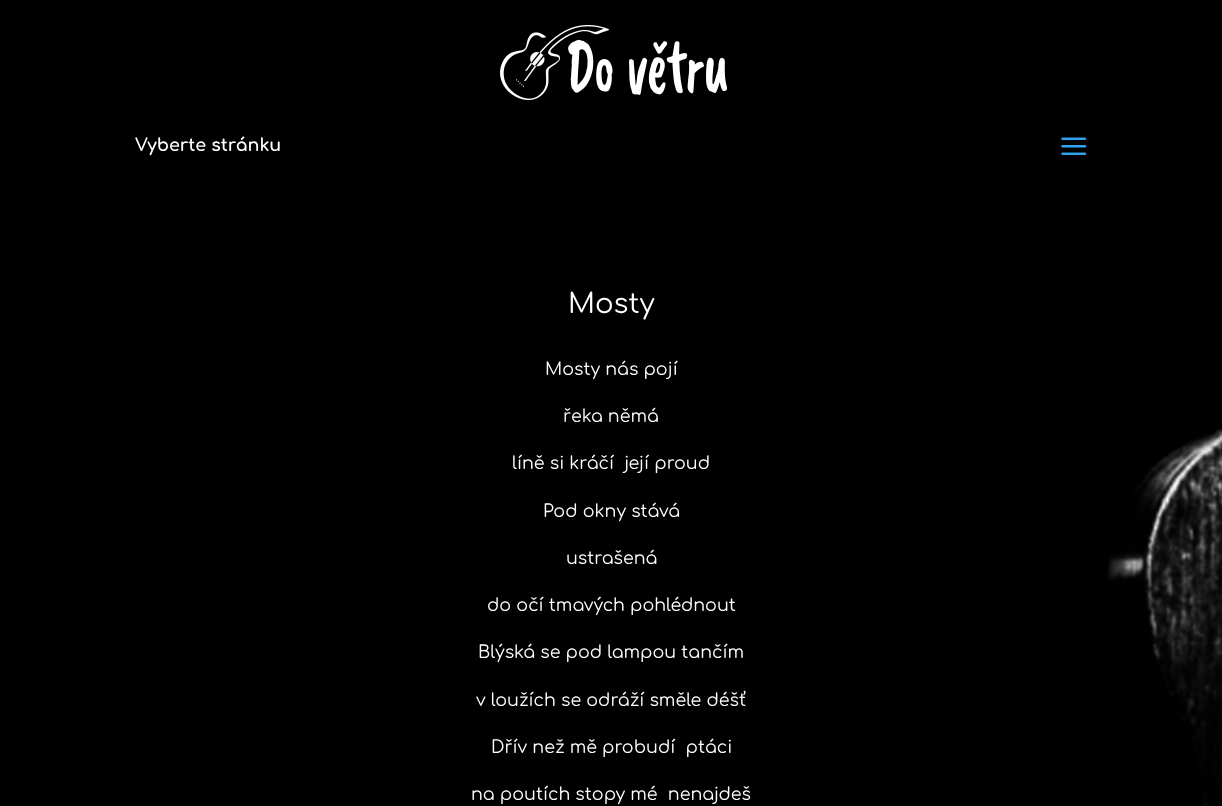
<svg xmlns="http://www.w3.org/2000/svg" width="1222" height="806">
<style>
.a{font:bold 17.5px Comfortaa;fill:#fff}
.b{font:27.5px Comfortaa;fill:#fff}
.c{font:17.5px Comfortaa;fill:#fff}
</style>
<rect width="100%" height="100%" fill="#000"/>
<image href="1.png" x="1107" y="428" width="115" height="378"/>
<image href="2.png" x="500" y="25" width="227" height="75"/>
<image href="3.png" x="1061" y="137" width="26" height="18"/>
<text class="a" x="135" y="151">Vyberte stránku</text>
<text class="b" x="568" y="313">Mosty</text>
<text class="c" x="545" y="375">Mosty nás pojí</text>
<text class="c" x="563" y="422">řeka němá</text>
<text class="c" xml:space="preserve" x="512" y="469">líně si kráčí  její proud</text>
<text class="c" x="543" y="517">Pod okny stává</text>
<text class="c" x="566" y="564">ustrašená</text>
<text class="c" x="487" y="611">do očí tmavých pohlédnout</text>
<text class="c" x="478" y="658">Blýská se pod lampou tančím</text>
<text class="c" x="476" y="706">v loužích se odráží směle déšť</text>
<text class="c" xml:space="preserve" x="491" y="753">Dřív než mě probudí  ptáci</text>
<text class="c" xml:space="preserve" x="471" y="800">na poutích stopy mé  nenajdeš</text>
</svg>
